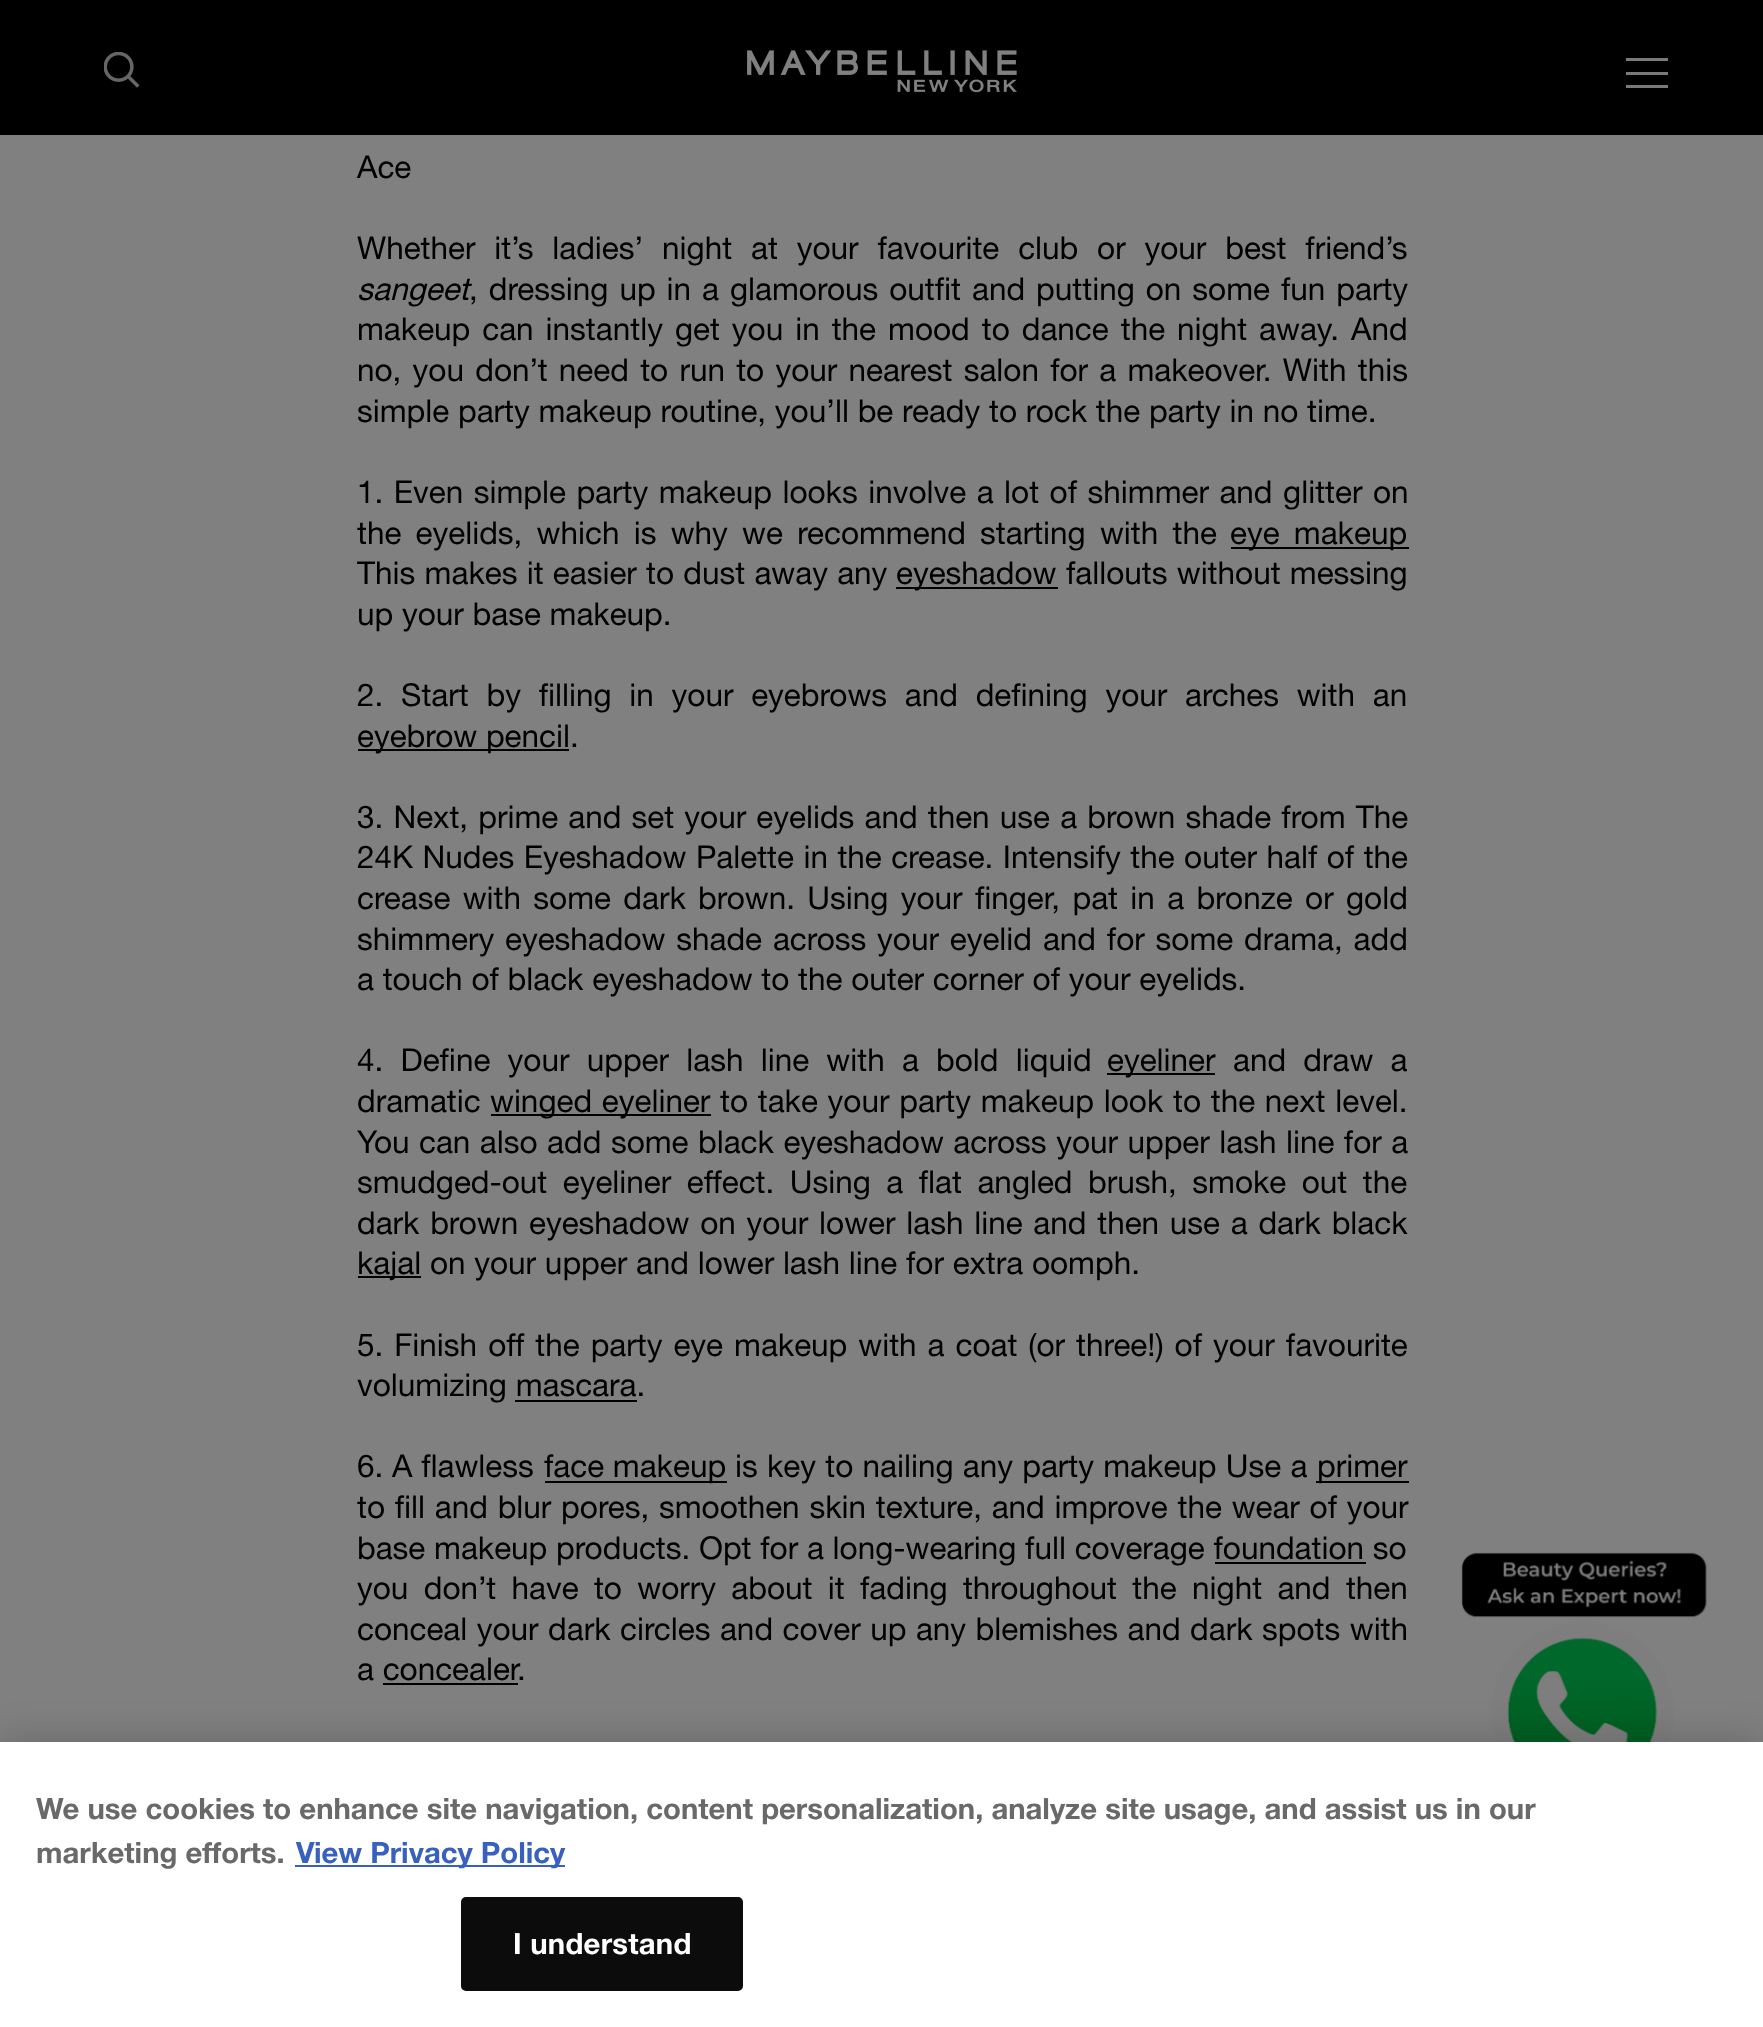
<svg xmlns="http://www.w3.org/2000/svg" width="1763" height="2027">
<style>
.a{font:31.5px Helvetica Neue;fill:#000}
.b{font:italic 31.5px Helvetica Neue;fill:#000}
.c{font:bold 29.27px Helvetica Neue;fill:#696969}
.d{font:bold 29.27px Helvetica Neue;fill:#3860be}
.e{font:bold 29.27px Helvetica Neue;letter-spacing:0.25px;fill:#fff}
</style>
<rect width="100%" height="100%" fill="#808080"/>
<path fill="#000" d="M0 0h1763v135H0z"/>
<image href="1.png" x="104" y="52" width="36" height="36"/>
<image href="2.png" x="747" y="50" width="270" height="43"/>
<path fill="#797979" d="M1626 58h42v3H1626z"/>
<path fill="#797979" d="M1626 72h42v3H1626z"/>
<path fill="#797979" d="M1626 85h42v3H1626z"/>
<path fill="#000" d="M1231 547h178v2H1231z"/>
<path fill="#000" d="M896 587h162v2H896z"/>
<path fill="#000" d="M358 749h211v2H358z"/>
<path fill="#000" d="M1107 1073h108v2H1107z"/>
<path fill="#000" d="M491 1114h220v2H491z"/>
<path fill="#000" d="M358 1276h63v2H358z"/>
<path fill="#000" d="M515 1400h122v2H515z"/>
<path fill="#000" d="M545 1481h182v2H545z"/>
<path fill="#000" d="M1316 1481h93v2H1316z"/>
<path fill="#000" d="M1215 1562h151v2H1215z"/>
<path fill="#000" d="M383 1683h135v2H383z"/>
<image href="3.png" x="1461" y="1552" width="246" height="190"/>
<path fill="#00000033" filter="blur(20px)" d="M0 1742h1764v285H0z"/>
<path fill="#fff" d="M0 1742h1763v285H0z"/>
<path fill="#3860be" d="M295 1865h270v2H295z"/>
<rect fill="#0d0c0c" stroke="#0d0c0c" stroke-width="2" x="462" y="1898" width="280" height="92" rx="4"/>
<text class="a" x="357" y="178">Ace</text>
<text class="a" x="357" y="259" word-spacing="10.1">Whether it’s ladies’ night at your favourite club or your best friend’s</text>
<text class="b" x="357" y="300">sangeet</text>
<text class="a" x="469" y="300" word-spacing="2.25">, dressing up in a glamorous outfit and putting on some fun party</text>
<text class="a" x="357" y="340" word-spacing="3.25">makeup can instantly get you in the mood to dance the night away. And</text>
<text class="a" x="357" y="381" word-spacing="2.5">no, you don’t need to run to your nearest salon for a makeover. With this</text>
<text class="a" x="357" y="422">simple party makeup routine, you’ll be ready to rock the party in no time.</text>
<text class="a" x="357" y="503" word-spacing="1.75">1. Even simple party makeup looks involve a lot of shimmer and glitter on</text>
<text class="a" x="357" y="544" word-spacing="5.5">the eyelids, which is why we recommend starting with the</text>
<text class="a" x="1230" y="544" word-spacing="5.5">eye makeup</text>
<text class="a" x="357" y="584" word-spacing="0.5">This makes it easier to dust away any</text>
<text class="a" x="896" y="584">eyeshadow</text>
<text class="a" x="1066" y="584" word-spacing="0.5">fallouts without messing</text>
<text class="a" x="357" y="625">up your base makeup.</text>
<text class="a" x="357" y="706" word-spacing="9">2. Start by filling in your eyebrows and defining your arches with an</text>
<text class="a" x="357" y="747">eyebrow pencil.</text>
<text class="a" x="357" y="828" word-spacing="1.4">3. Next, prime and set your eyelids and then use a brown shade from The</text>
<text class="a" x="357" y="868" word-spacing="0.75">24K Nudes Eyeshadow Palette in the crease. Intensify the outer half of the</text>
<text class="a" x="357" y="909" word-spacing="3.6">crease with some dark brown. Using your finger, pat in a bronze or gold</text>
<text class="a" x="357" y="950" word-spacing="2.1">shimmery eyeshadow shade across your eyelid and for some drama, add</text>
<text class="a" x="357" y="990">a touch of black eyeshadow to the outer corner of your eyelids.</text>
<text class="a" x="357" y="1071" word-spacing="8.5">4. Define your upper lash line with a bold liquid</text>
<text class="a" x="1107" y="1071">eyeliner</text>
<text class="a" x="1233" y="1071" word-spacing="8.5">and draw a</text>
<text class="a" x="357" y="1112">dramatic</text>
<text class="a" x="490" y="1112" word-spacing="1">winged eyeliner</text>
<text class="a" x="720" y="1112" word-spacing="1">to take your party makeup look to the next level.</text>
<text class="a" x="357" y="1153" word-spacing="0.75">You can also add some black eyeshadow across your upper lash line for a</text>
<text class="a" x="357" y="1193" word-spacing="6.75">smudged-out eyeliner effect. Using a flat angled brush, smoke out the</text>
<text class="a" x="357" y="1234" word-spacing="2">dark brown eyeshadow on your lower lash line and then use a dark black</text>
<text class="a" x="357" y="1274">kajal on your upper and lower lash line for extra oomph.</text>
<text class="a" x="357" y="1356" word-spacing="2.25">5. Finish off the party eye makeup with a coat (or three!) of your favourite</text>
<text class="a" x="357" y="1396">volumizing mascara.</text>
<text class="a" x="357" y="1477">6. A flawless</text>
<text class="a" x="544" y="1477">face makeup</text>
<text class="a" x="735" y="1477" word-spacing="0.5">is key to nailing any party makeup Use a</text>
<text class="a" x="1317" y="1477">primer</text>
<text class="a" x="357" y="1518" word-spacing="1">to fill and blur pores, smoothen skin texture, and improve the wear of your</text>
<text class="a" x="357" y="1559">base makeup products. Opt for a long-wearing full coverage foundation so</text>
<text class="a" x="357" y="1599" word-spacing="6.6">you don’t have to worry about it fading throughout the night and then</text>
<text class="a" x="357" y="1640" word-spacing="0.75">conceal your dark circles and cover up any blemishes and dark spots with</text>
<text class="a" x="357" y="1680">a concealer</text>
<text class="a" x="517" y="1680">.</text>
<text class="c" x="36" y="1819">We use cookies to enhance site navigation, content personalization, analyze site usage, and assist us in our</text>
<text class="c" x="36" y="1863">marketing efforts.</text>
<text class="d" x="296" y="1863">View Privacy Policy</text>
<text class="e" x="513" y="1954">I understand</text>
</svg>
